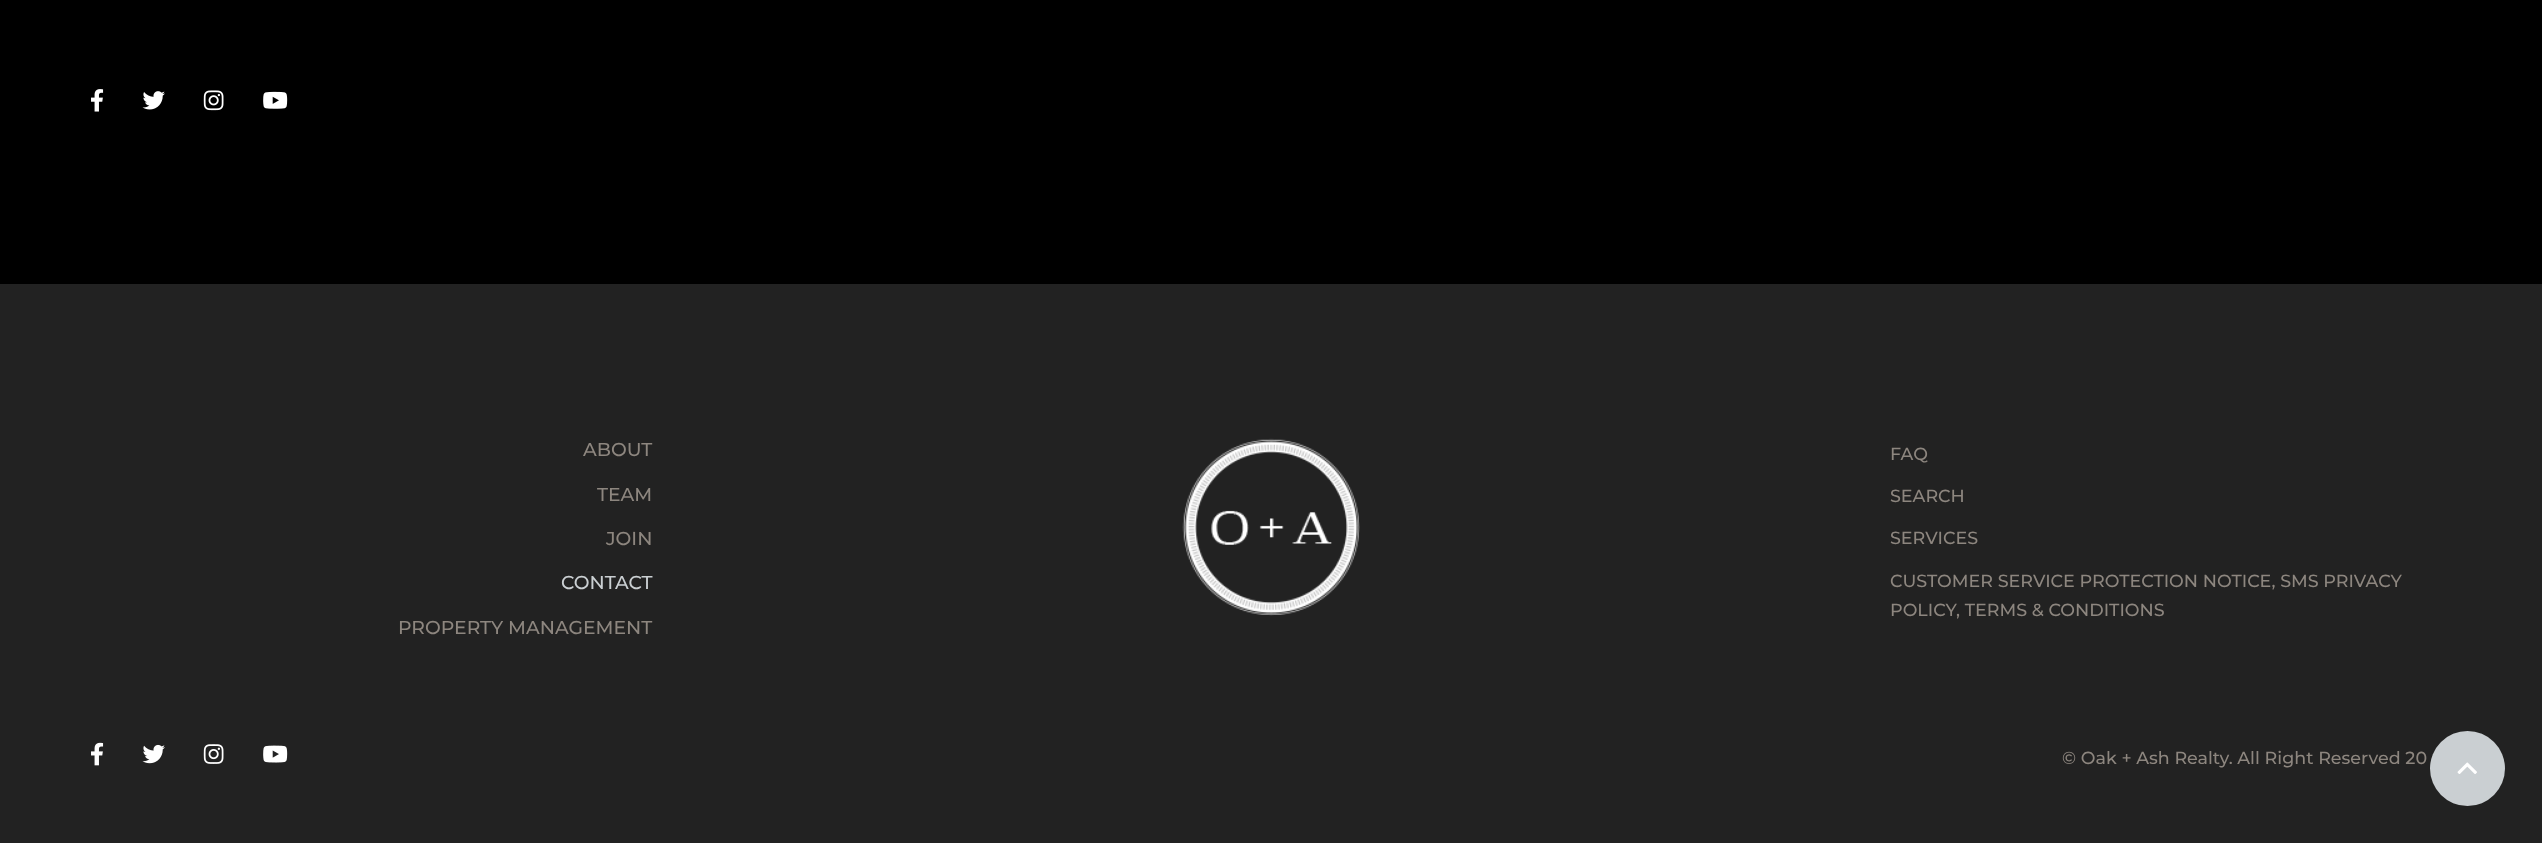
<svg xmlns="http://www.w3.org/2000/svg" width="2542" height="843">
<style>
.a{font:500 18.75px Montserrat;fill:#8d867f}
.b{font:500 18.75px Montserrat;fill:#cacfd2}
.c{font:500 17.5px Montserrat;fill:#8d867f}
</style>
<rect width="100%" height="100%" fill="#000"/>
<image href="1.png" x="91" y="89" width="13" height="23"/>
<image href="2.png" x="142" y="91" width="23" height="19"/>
<image href="3.png" x="203" y="90" width="21" height="21"/>
<image href="4.png" x="263" y="91" width="25" height="18"/>
<path fill="#222" d="M0 284h2542v559H0z"/>
<image href="5.png" x="1182" y="438" width="178" height="178"/>
<image href="6.png" x="91" y="742" width="13" height="24"/>
<image href="7.png" x="142" y="744" width="23" height="20"/>
<image href="8.png" x="203" y="744" width="21" height="20"/>
<image href="9.png" x="263" y="745" width="25" height="18"/>
<circle fill="#cacfd2" cx="2467.5" cy="768.5" r="37.5"/>
<image href="10.png" x="2457" y="762" width="20" height="12"/>
<text class="a" x="583" y="456">ABOUT</text>
<text class="a" x="597" y="501">TEAM</text>
<text class="a" x="606" y="545">JOIN</text>
<text class="b" x="561" y="589">CONTACT</text>
<text class="a" x="398" y="634">PROPERTY MANAGEMENT</text>
<text class="c" x="1890" y="460">FAQ</text>
<text class="c" x="1890" y="502">SEARCH</text>
<text class="c" x="1890" y="544">SERVICES</text>
<text class="c" x="1890" y="587">CUSTOMER SERVICE PROTECTION NOTICE, SMS PRIVACY</text>
<text class="c" x="1890" y="616">POLICY, TERMS &amp; CONDITIONS</text>
<text class="c" x="2062" y="764">© Oak + Ash Realty. All Right Reserved 20</text>
</svg>
